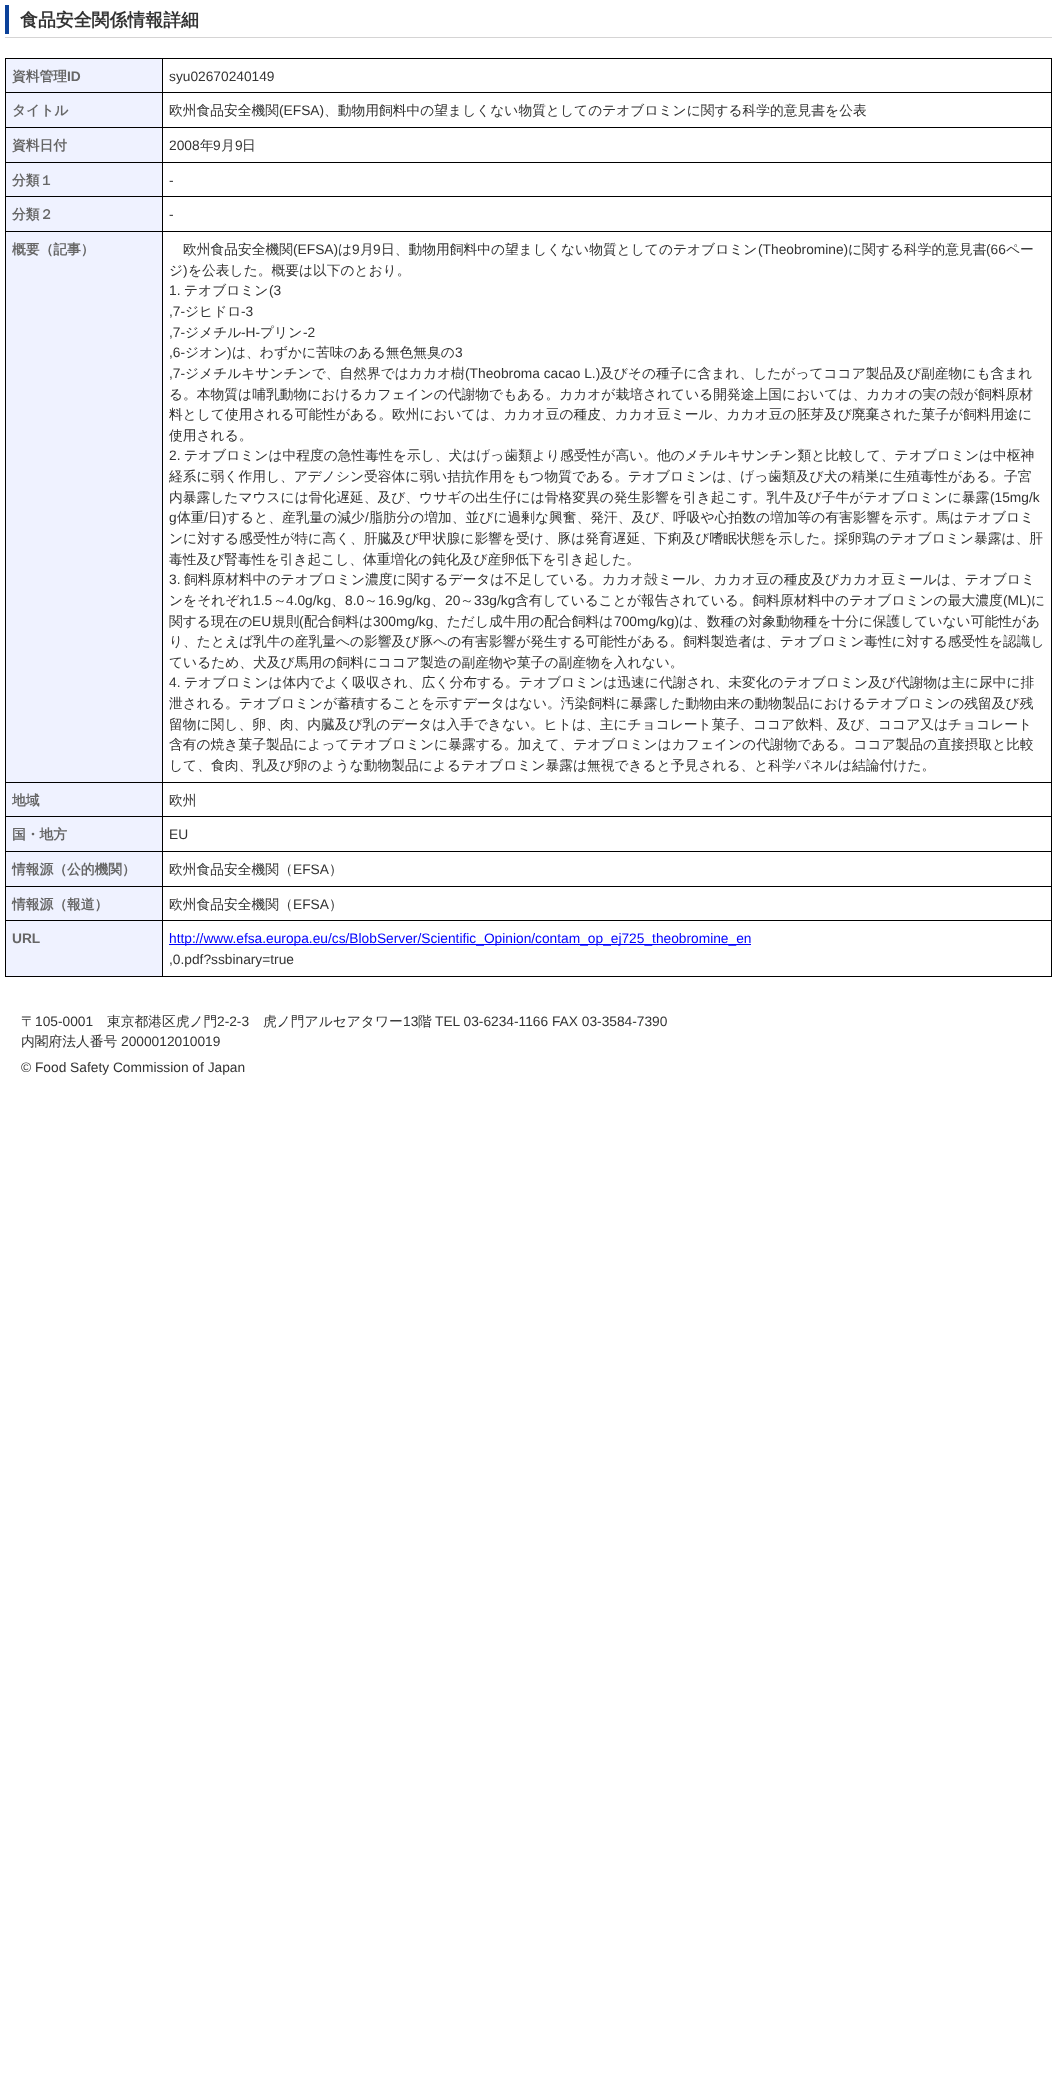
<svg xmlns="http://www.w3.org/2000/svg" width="1057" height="2095">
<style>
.a{font:bold 17.9px WenQuanYi Zen Hei;fill:#333}
.b{font:bold 13.75px WenQuanYi Zen Hei;fill:#666}
.c{font:bold 13.75px Liberation Sans;fill:#666}
.d{font:13.75px Liberation Sans;fill:#333}
.e{font:500 13.75px WenQuanYi Zen Hei;fill:#333}
.f{font:13.75px Liberation Sans;fill:#00f}
</style>
<rect width="100%" height="100%" fill="#fff"/>
<path fill="#0b4199" d="M5 5h4v29H5z"/>
<path fill="#d5d4d4" d="M5 37h1047v1H5z"/>
<path fill="#000" d="M5 58h1047v1H5z"/>
<path fill="#000" d="M1051 58h1v919H1051z"/>
<path fill="#000" d="M5 976h1047v1H5z"/>
<path fill="#000" d="M5 58h1v919H5z"/>
<path fill="#eff2ff" d="M6 59h156v33H6z"/>
<path fill="#000" d="M162 92h890v1H162z"/>
<path fill="#000" d="M162 127h890v1H162z"/>
<path fill="#000" d="M162 162h890v1H162z"/>
<path fill="#000" d="M162 196h890v1H162z"/>
<path fill="#000" d="M162 231h890v1H162z"/>
<path fill="#000" d="M162 782h890v1H162z"/>
<path fill="#000" d="M162 816h890v1H162z"/>
<path fill="#000" d="M162 851h890v1H162z"/>
<path fill="#000" d="M162 886h890v1H162z"/>
<path fill="#000" d="M162 920h890v1H162z"/>
<path fill="#000" d="M162 920h1v57H162z"/>
<path fill="#000" d="M5 920h158v1H5z"/>
<path fill="#000" d="M162 886h1v35H162z"/>
<path fill="#000" d="M5 886h158v1H5z"/>
<path fill="#000" d="M162 851h1v36H162z"/>
<path fill="#000" d="M5 851h158v1H5z"/>
<path fill="#000" d="M162 816h1v36H162z"/>
<path fill="#000" d="M5 816h158v1H5z"/>
<path fill="#000" d="M162 782h1v35H162z"/>
<path fill="#000" d="M5 782h158v1H5z"/>
<path fill="#000" d="M162 231h1v552H162z"/>
<path fill="#000" d="M5 231h158v1H5z"/>
<path fill="#000" d="M162 196h1v36H162z"/>
<path fill="#000" d="M5 196h158v1H5z"/>
<path fill="#000" d="M162 162h1v35H162z"/>
<path fill="#000" d="M5 162h158v1H5z"/>
<path fill="#000" d="M162 127h1v36H162z"/>
<path fill="#000" d="M5 127h158v1H5z"/>
<path fill="#000" d="M162 92h1v36H162z"/>
<path fill="#000" d="M5 92h158v1H5z"/>
<path fill="#000" d="M162 58h1v35H162z"/>
<path fill="#eff2ff" d="M6 93h156v34H6z"/>
<path fill="#eff2ff" d="M6 128h156v34H6z"/>
<path fill="#eff2ff" d="M6 163h156v33H6z"/>
<path fill="#eff2ff" d="M6 197h156v34H6z"/>
<path fill="#eff2ff" d="M6 232h156v550H6z"/>
<path fill="#eff2ff" d="M6 783h156v33H6z"/>
<path fill="#eff2ff" d="M6 817h156v34H6z"/>
<path fill="#eff2ff" d="M6 852h156v34H6z"/>
<path fill="#eff2ff" d="M6 887h156v33H6z"/>
<path fill="#eff2ff" d="M6 921h156v55H6z"/>
<path fill="#00f" d="M169 944h582v1H169z"/>
<text class="a" x="20" y="26">食品安全関係情報詳細</text>
<text class="b" x="12" y="81">資料管理</text>
<text class="c" x="67" y="81">ID</text>
<text class="d" x="169" y="81">syu02670240149</text>
<text class="b" x="12" y="115">タイトル</text>
<text class="e" x="169" y="115">欧州食品安全機関</text>
<text class="d" x="279" y="115">(EFSA)</text>
<text class="e" x="324" y="115">、動物用飼料中の望ましくない物質としてのテオブロミンに関する科学的意見書を公表</text>
<text class="b" x="12" y="150">資料日付</text>
<text class="d" x="169" y="150">2008</text>
<text class="e" x="200" y="150">年</text>
<text class="d" x="213" y="150">9</text>
<text class="e" x="221" y="150">月</text>
<text class="d" x="235" y="150">9</text>
<text class="e" x="242" y="150">日</text>
<text class="b" x="12" y="185">分類１</text>
<text class="d" x="169" y="185">-</text>
<text class="b" x="12" y="219">分類２</text>
<text class="d" x="169" y="219">-</text>
<text class="b" x="12" y="254">概要（記事）</text>
<text class="e" x="183" y="254">欧州食品安全機関</text>
<text class="d" x="293" y="254">(EFSA)</text>
<text class="e" x="338" y="254">は</text>
<text class="d" x="352" y="254">9</text>
<text class="e" x="360" y="254">月</text>
<text class="d" x="373" y="254">9</text>
<text class="e" x="381" y="254">日、動物用飼料中の望ましくない物質としてのテオブロミン</text>
<text class="d" x="758" y="254">(Theobromine)</text>
<text class="e" x="848" y="254">に関する科学的意見書</text>
<text class="d" x="986" y="254">(66</text>
<text class="e" x="1006" y="254">ペー</text>
<text class="e" x="169" y="275">ジ</text>
<text class="d" x="183" y="275">)</text>
<text class="e" x="188" y="275">を公表した。概要は以下のとおり。</text>
<text class="d" x="169" y="295">1.</text>
<text class="e" x="184" y="295">テオブロミン</text>
<text class="d" x="269" y="295">(3</text>
<text class="d" x="169" y="316">,7-</text>
<text class="e" x="185" y="316">ジヒドロ</text>
<text class="d" x="241" y="316">-3</text>
<text class="d" x="169" y="337">,7-</text>
<text class="e" x="185" y="337">ジメチル</text>
<text class="d" x="241" y="337">-H-</text>
<text class="e" x="260" y="337">プリン</text>
<text class="d" x="303" y="337">-2</text>
<text class="d" x="169" y="357">,6-</text>
<text class="e" x="185" y="357">ジオン</text>
<text class="d" x="227" y="357">)</text>
<text class="e" x="232" y="357">は、わずかに苦味のある無色無臭の</text>
<text class="d" x="455" y="357">3</text>
<text class="d" x="169" y="378">,7-</text>
<text class="e" x="185" y="378">ジメチルキサンチンで、自然界ではカカオ樹</text>
<text class="d" x="465" y="378">(Theobroma cacao L.)</text>
<text class="e" x="600" y="378">及びその種子に含まれ、したがってココア製品及び副産物にも含まれ</text>
<text class="e" x="169" y="399">る。本物質は哺乳動物におけるカフェインの代謝物でもある。カカオが栽培されている開発途上国においては、カカオの実の殻が飼料原材</text>
<text class="e" x="169" y="419">料として使用される可能性がある。欧州においては、カカオ豆の種皮、カカオ豆ミール、カカオ豆の胚芽及び廃棄された菓子が飼料用途に</text>
<text class="e" x="169" y="440">使用される。</text>
<text class="d" x="169" y="460">2.</text>
<text class="e" x="184" y="460">テオブロミンは中程度の急性毒性を示し、犬はげっ歯類より感受性が高い。他のメチルキサンチン類と比較して、テオブロミンは中枢神</text>
<text class="e" x="169" y="481">経系に弱く作用し、アデノシン受容体に弱い拮抗作用をもつ物質である。テオブロミンは、げっ歯類及び犬の精巣に生殖毒性がある。子宮</text>
<text class="e" x="169" y="502">内暴露したマウスには骨化遅延、及び、ウサギの出生仔には骨格変異の発生影響を引き起こす。乳牛及び子牛がテオブロミンに暴露</text>
<text class="d" x="990" y="502">(15mg/k</text>
<text class="d" x="169" y="522">g</text>
<text class="e" x="177" y="522">体重</text>
<text class="d" x="204" y="522">/</text>
<text class="e" x="208" y="522">日</text>
<text class="d" x="222" y="522">)</text>
<text class="e" x="226" y="522">すると、産乳量の減少</text>
<text class="d" x="365" y="522">/</text>
<text class="e" x="369" y="522">脂肪分の増加、並びに過剰な興奮、発汗、及び、呼吸や心拍数の増加等の有害影響を示す。馬はテオブロミ</text>
<text class="e" x="169" y="543">ンに対する感受性が特に高く、肝臓及び甲状腺に影響を受け、豚は発育遅延、下痢及び嗜眠状態を示した。採卵鶏のテオブロミン暴露は、肝</text>
<text class="e" x="169" y="564">毒性及び腎毒性を引き起こし、体重増化の鈍化及び産卵低下を引き起した。</text>
<text class="d" x="169" y="584">3.</text>
<text class="e" x="184" y="584">飼料原材料中のテオブロミン濃度に関するデータは不足している。カカオ殻ミール、カカオ豆の種皮及びカカオ豆ミールは、テオブロミ</text>
<text class="e" x="169" y="605">ンをそれぞれ</text>
<text class="d" x="253" y="605">1.5</text>
<text class="e" x="273" y="605">～</text>
<text class="d" x="286" y="605">4.0g/kg</text>
<text class="d" x="345" y="605">8.0</text>
<text class="e" x="364" y="605">～</text>
<text class="d" x="378" y="605">16.9g/kg</text>
<text class="d" x="445" y="605">20</text>
<text class="e" x="460" y="605">～</text>
<text class="d" x="474" y="605">33g/kg</text>
<text class="e" x="515" y="605">含有していることが報告されている。飼料原材料中のテオブロミンの最大濃度</text>
<text class="d" x="1003" y="605">(ML)</text>
<text class="e" x="1031" y="605">に</text>
<text class="e" x="331" y="605">、</text>
<text class="e" x="431" y="605">、</text>
<text class="e" x="169" y="626">関する現在の</text>
<text class="d" x="252" y="626">EU</text>
<text class="e" x="272" y="626">規則</text>
<text class="d" x="299" y="626">(</text>
<text class="e" x="304" y="626">配合飼料は</text>
<text class="d" x="373" y="626">300mg/kg</text>
<text class="e" x="433" y="626">、ただし成牛用の配合飼料は</text>
<text class="d" x="614" y="626">700mg/kg)</text>
<text class="e" x="679" y="626">は、数種の対象動物種を十分に保護していない可能性があ</text>
<text class="e" x="169" y="646">り、たとえば乳牛の産乳量への影響及び豚への有害影響が発生する可能性がある。飼料製造者は、テオブロミン毒性に対する感受性を認識し</text>
<text class="e" x="169" y="667">ているため、犬及び馬用の飼料にココア製造の副産物や菓子の副産物を入れない。</text>
<text class="d" x="169" y="687">4.</text>
<text class="e" x="184" y="687">テオブロミンは体内でよく吸収され、広く分布する。テオブロミンは迅速に代謝され、未変化のテオブロミン及び代謝物は主に尿中に排</text>
<text class="e" x="169" y="708">泄される。テオブロミンが蓄積することを示すデータはない。汚染飼料に暴露した動物由来の動物製品におけるテオブロミンの残留及び残</text>
<text class="e" x="169" y="729">留物に関し、卵、肉、内臓及び乳のデータは入手できない。ヒトは、主にチョコレート菓子、ココア飲料、及び、ココア又はチョコレート</text>
<text class="e" x="169" y="749">含有の焼き菓子製品によってテオブロミンに暴露する。加えて、テオブロミンはカフェインの代謝物である。ココア製品の直接摂取と比較</text>
<text class="e" x="169" y="770">して、食肉、乳及び卵のような動物製品によるテオブロミン暴露は無視できると予見される、と科学パネルは結論付けた。</text>
<text class="b" x="12" y="805">地域</text>
<text class="e" x="169" y="805">欧州</text>
<text class="b" x="12" y="839">国・地方</text>
<text class="d" x="169" y="839">EU</text>
<text class="b" x="12" y="874">情報源（公的機関）</text>
<text class="e" x="169" y="874">欧州食品安全機関（</text>
<text class="d" x="293" y="874">EFSA</text>
<text class="e" x="329" y="874">）</text>
<text class="b" x="12" y="909">情報源（報道）</text>
<text class="e" x="169" y="909">欧州食品安全機関（</text>
<text class="d" x="293" y="909">EFSA</text>
<text class="e" x="329" y="909">）</text>
<text class="c" x="12" y="943">URL</text>
<text class="f" x="169" y="943">http://www.efsa.europa.eu/cs/BlobServer/Scientific_Opinion/contam_op_ej725_theobromine_en</text>
<text class="d" x="169" y="964">,0.pdf?ssbinary=true</text>
<text class="e" x="21" y="1026">〒</text>
<text class="d" x="35" y="1026">105-0001</text>
<text class="e" x="107" y="1026">東京都港区虎ノ門</text>
<text class="d" x="217" y="1026">2-2-3</text>
<text class="e" x="263" y="1026">虎ノ門アルセアタワー</text>
<text class="d" x="403" y="1026">13</text>
<text class="e" x="418" y="1026">階</text>
<text class="d" x="435" y="1026">TEL 03-6234-1166 FAX 03-3584-7390</text>
<text class="e" x="21" y="1046">内閣府法人番号</text>
<text class="d" x="121" y="1046">2000012010019</text>
<text class="d" x="21" y="1072">© Food Safety Commission of Japan</text>
</svg>
